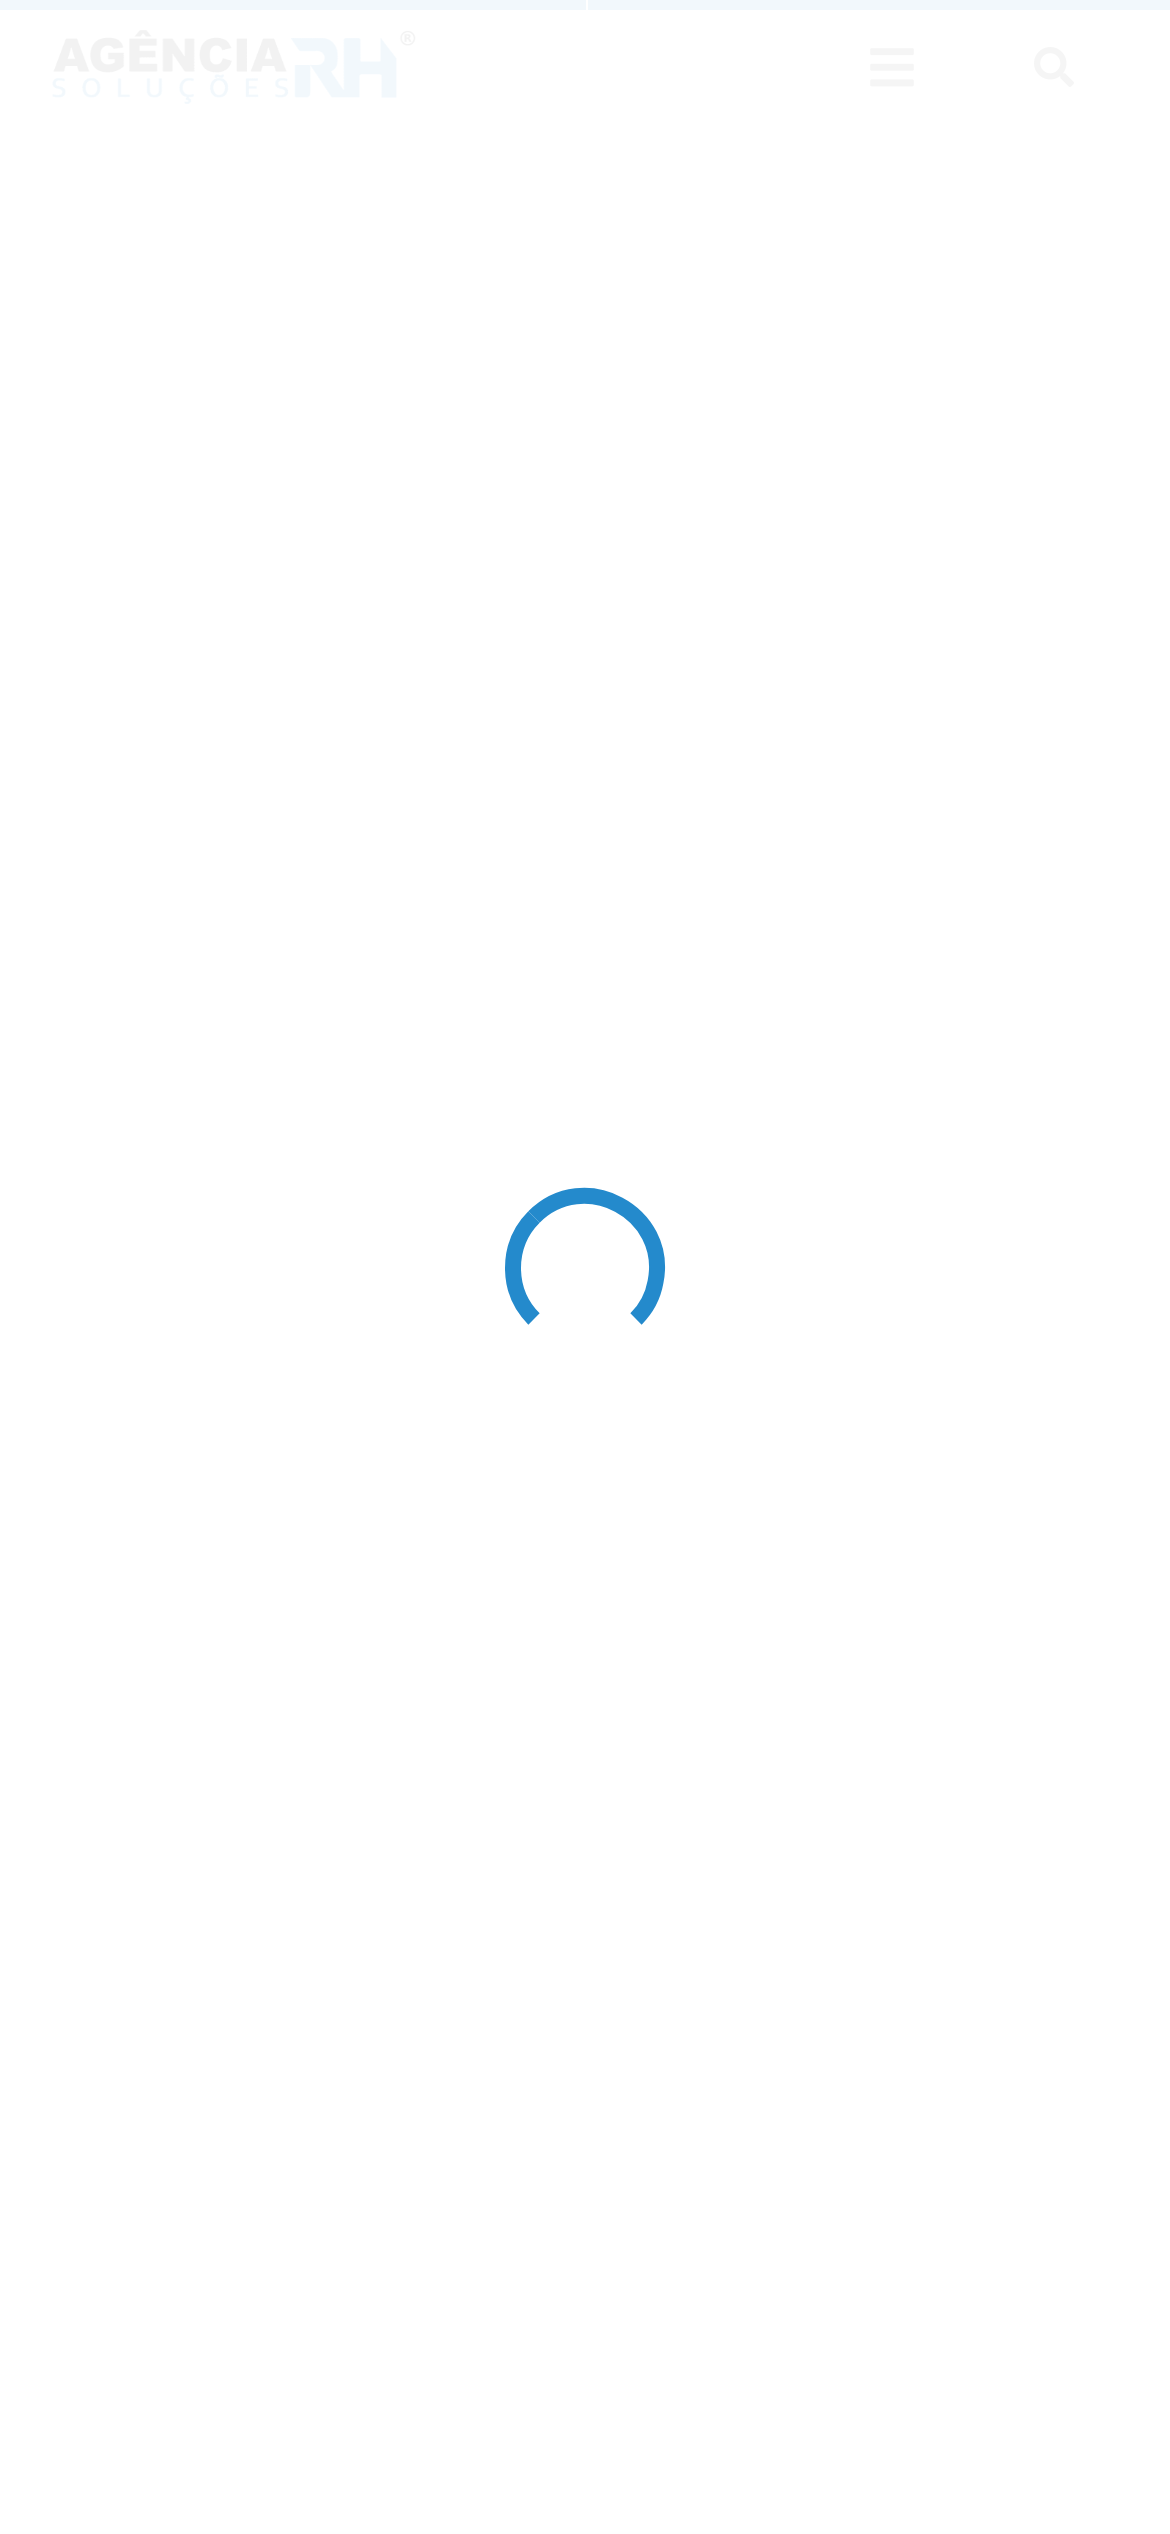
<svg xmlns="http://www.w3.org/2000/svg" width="1170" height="2534">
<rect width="100%" height="100%" fill="#fff"/>
<path fill="#0277c4" d="M0 0h1170v10H0z"/>
<image href="1.png" x="52" y="30" width="364" height="74"/>
<image href="2.png" x="870" y="48" width="44" height="39"/>
<image href="3.png" x="1034" y="47" width="40" height="40"/>
<path fill="#fffffff2" d="M0 0h588v104H0z"/>
<path fill="#fffffff2" d="M586 0h584v87H586z"/>
<path fill="none" stroke="#248acc" stroke-width="16" d="M534 1319c-28-28-28-74 0-102"/>
<path fill="none" stroke="#248acc" stroke-width="16" d="M534 1217c50-50 135.5-4.5 121.5 65c-2.5 14-9.5 27-19.5 37"/>
</svg>
